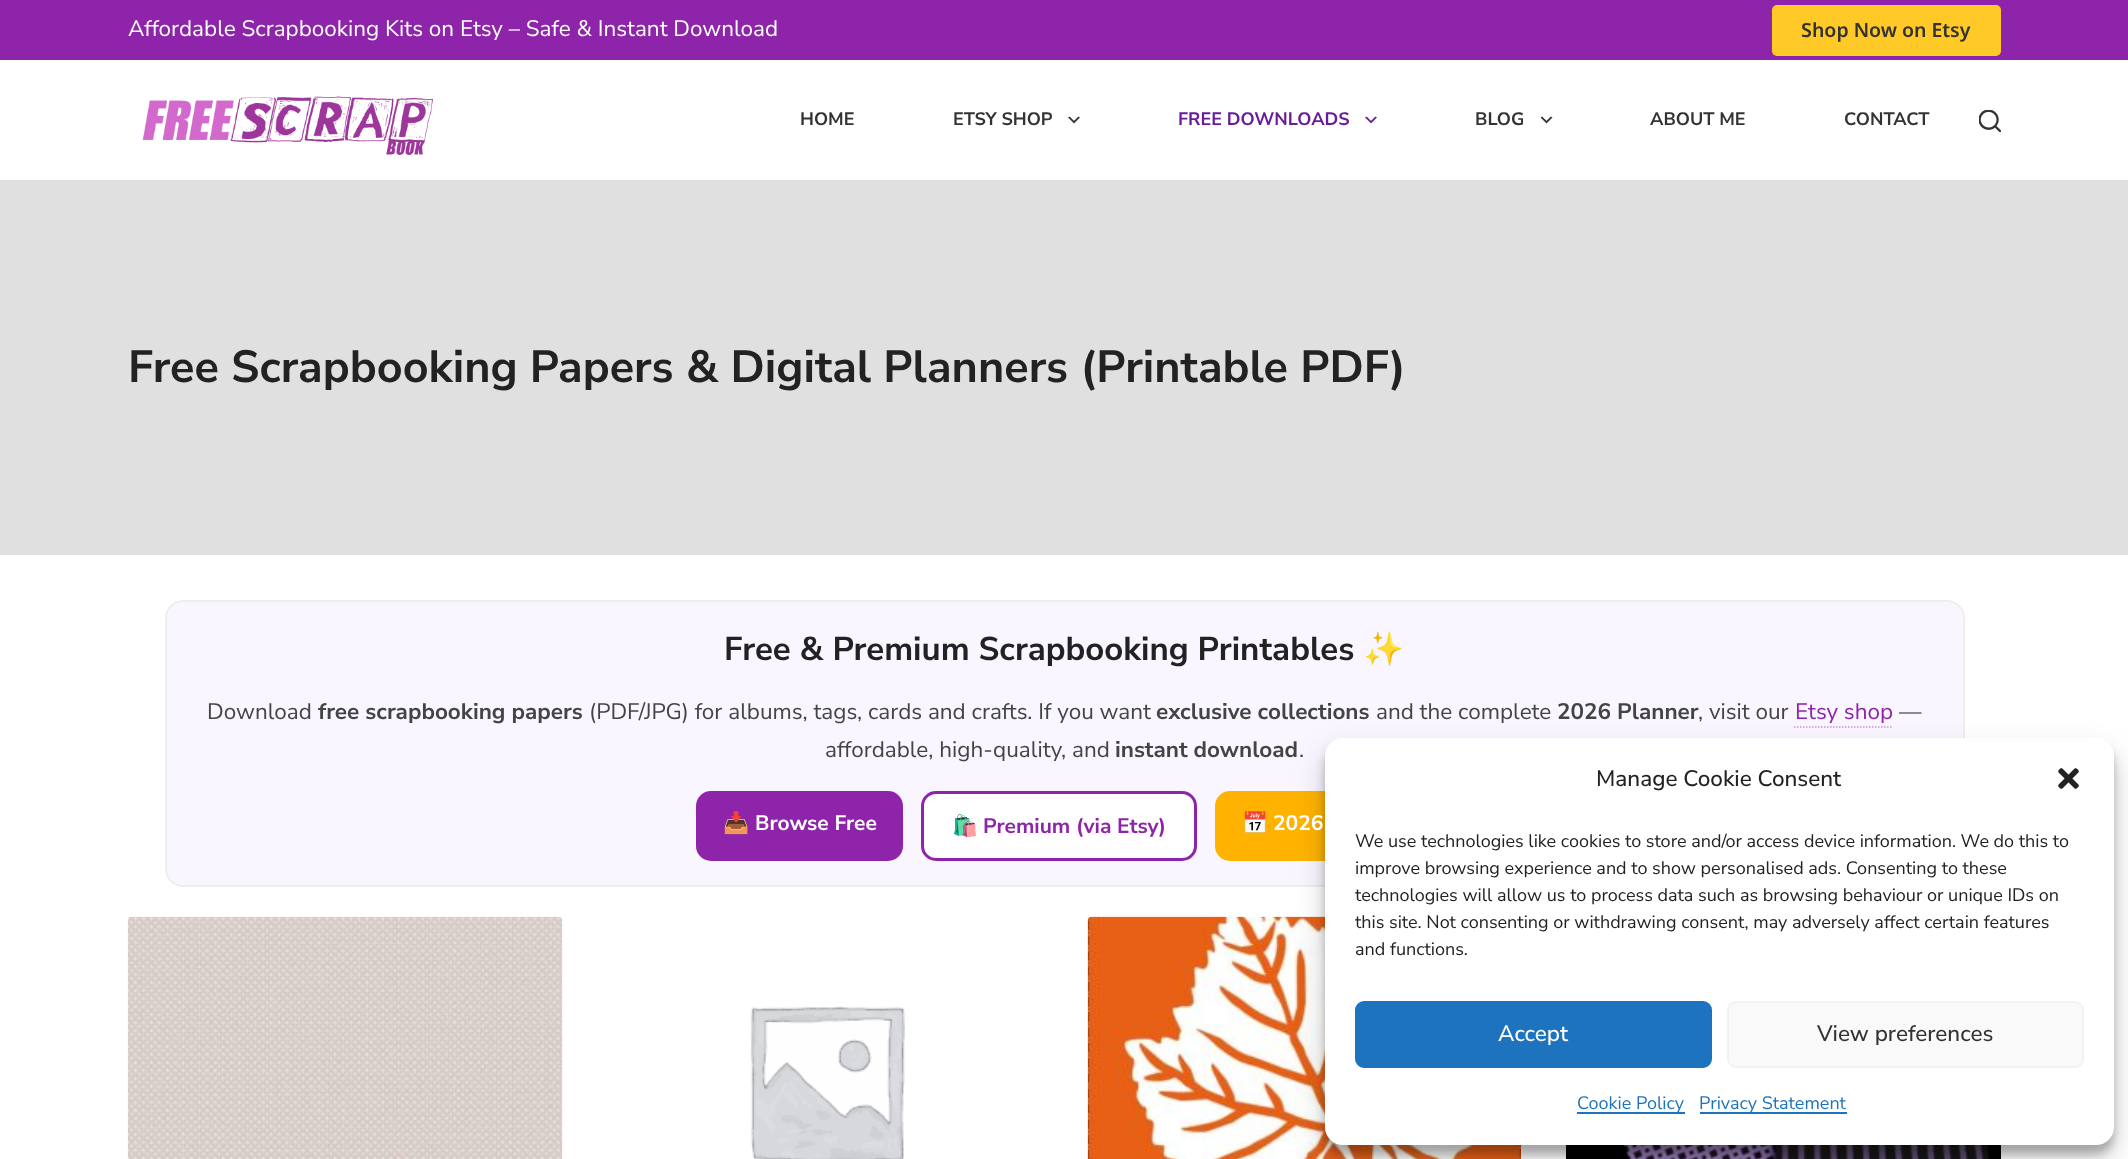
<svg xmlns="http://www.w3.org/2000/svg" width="2128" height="1159">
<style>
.a{font:22.5px Nunito Sans;fill:#fff}
.b{font:600 19.5px Noto Sans Georgian;fill:#333}
.c{font:bold 18px Nunito Sans;fill:#333}
.d{font:bold 18px Nunito Sans;fill:#6a1b9a}
.e{font:bold 45px Nunito Sans;fill:#222}
.f{font:bold 33px Nunito Sans;fill:#222}
.g{font:bold 33px Noto Color Emoji;fill:#222}
.h{font:22.5px Nunito Sans;fill:#444}
.i{font:bold 22.5px Nunito Sans;fill:#444}
.j{font:22.5px Nunito Sans;fill:#8e24aa}
.k{font:bold 21px Noto Color Emoji;fill:#fff}
.l{font:bold 21px Nunito Sans;fill:#fff}
.m{font:bold 21px Noto Color Emoji;fill:#8e24aa}
.n{font:bold 21px Nunito Sans;fill:#8e24aa}
.o{font:500 22.5px Nunito Sans;fill:#222}
.p{font:18px Nunito Sans;fill:#222}
.q{font:500 22.5px Nunito Sans;fill:#fff}
.r{font:500 22.5px Nunito Sans;fill:#333}
.s{font:18px Nunito Sans;fill:#1e73be}
</style>
<rect width="100%" height="100%" fill="#fff"/>
<path fill="#8e24aa" d="M0 0h2128v60H0z"/>
<rect fill="#ffca28" x="1772" y="5" width="229" height="51" rx="5"/>
<image href="1.png" x="142" y="96" width="291" height="59"/>
<image href="2.png" x="1068" y="116" width="12" height="8"/>
<image href="3.png" x="1365" y="116" width="12" height="8"/>
<image href="4.png" x="1541" y="116" width="12" height="8"/>
<image href="5.png" x="1979" y="110" width="22" height="22"/>
<path fill="#e0e0e0" d="M0 180h2128v375H0z"/>
<rect fill="#f9f6ff" stroke="#eee" stroke-width="2" x="166" y="601" width="1798" height="285" rx="17"/>
<path fill="none" stroke="#ce93d8" stroke-width="1.5" stroke-dasharray="1.5 1.5" d="M1794 727h99"/>
<rect fill="#8e24aa" x="696" y="791" width="207" height="70" rx="15"/>
<rect fill="#fff" stroke="#8e24aa" stroke-width="3" x="922.5" y="792.5" width="273" height="67" rx="13.5"/>
<rect fill="#ffb300" x="1215" y="791" width="218" height="70" rx="15"/>
<image href="6.png" x="127" y="916" width="436" height="243"/>
<image href="7.png" x="750" y="1006" width="155" height="153"/>
<image href="8.png" x="1087" y="916" width="434" height="243"/>
<image href="9.png" x="1566" y="1145" width="435" height="14"/>
<rect fill="#0000003b" filter="blur(4.5px)" x="1325" y="747" width="789" height="407" rx="18"/>
<rect fill="#00000030" filter="blur(15px)" x="1325" y="753" width="789" height="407" rx="18"/>
<rect fill="#fff" x="1325" y="738" width="789" height="407" rx="18"/>
<image href="10.png" x="2058" y="768" width="21" height="21"/>
<rect fill="#1e73be" stroke="#1e73be" stroke-width="2" x="1356" y="1002" width="355" height="65" rx="8"/>
<rect fill="#f9f9f9" stroke="#f2f2f2" stroke-width="2" x="1728" y="1002" width="355" height="65" rx="8"/>
<path fill="#1e73be" d="M1577 1112h108v2H1577z"/>
<path fill="#1e73be" d="M1700 1112h147v2H1700z"/>
<text class="a" x="128" y="36">Affordable Scrapbooking Kits on Etsy – Safe &amp; Instant Download</text>
<text class="b" x="1801" y="37">Shop Now on Etsy</text>
<text class="c" x="800" y="125">HOME</text>
<text class="c" x="953" y="125">ETSY SHOP</text>
<text class="d" x="1178" y="125">FREE DOWNLOADS</text>
<text class="c" x="1475" y="125">BLOG</text>
<text class="c" x="1650" y="125">ABOUT ME</text>
<text class="c" x="1844" y="125">CONTACT</text>
<text class="e" x="128" y="382">Free Scrapbooking Papers &amp; Digital Planners (Printable PDF)</text>
<text class="f" x="724" y="660">Free &amp; Premium Scrapbooking Printables</text>
<text class="g" x="1363" y="660">✨</text>
<text class="h" x="207" y="719">Download</text>
<text class="i" x="318" y="719">free scrapbooking papers</text>
<text class="h" x="589" y="719">(PDF/JPG) for albums, tags, cards and crafts. If you want</text>
<text class="i" x="1156" y="719">exclusive collections</text>
<text class="h" x="1376" y="719">and the complete</text>
<text class="i" x="1557" y="719">2026 Planner</text>
<text class="h" x="1698" y="719">, visit our</text>
<text class="j" x="1795" y="719">Etsy shop</text>
<text class="h" x="1899" y="719">—</text>
<text class="h" x="825" y="757">affordable, high-quality, and</text>
<text class="i" x="1115" y="757">instant download</text>
<text class="h" x="1299" y="757">.</text>
<text class="k" x="723" y="830">📥</text>
<text class="l" x="755" y="830">Browse Free</text>
<text class="m" x="952" y="833">🛍️</text>
<text class="n" x="983" y="833">Premium (via Etsy)</text>
<text class="k" x="1242" y="830">📅</text>
<text class="l" x="1273" y="830">2026</text>
<text class="o" x="1596" y="786">Manage Cookie Consent</text>
<text class="p" x="1355" y="847">We use technologies like cookies to store and/or access device information. We do this to</text>
<text class="p" x="1355" y="874">improve browsing experience and to show personalised ads. Consenting to these</text>
<text class="p" x="1355" y="901">technologies will allow us to process data such as browsing behaviour or unique IDs on</text>
<text class="p" x="1355" y="928">this site. Not consenting or withdrawing consent, may adversely affect certain features</text>
<text class="p" x="1355" y="955">and functions.</text>
<text class="q" x="1498" y="1041">Accept</text>
<text class="r" x="1817" y="1041">View preferences</text>
<text class="s" x="1577" y="1109">Cookie Policy</text>
<text class="s" x="1699" y="1109">Privacy Statement</text>
</svg>
